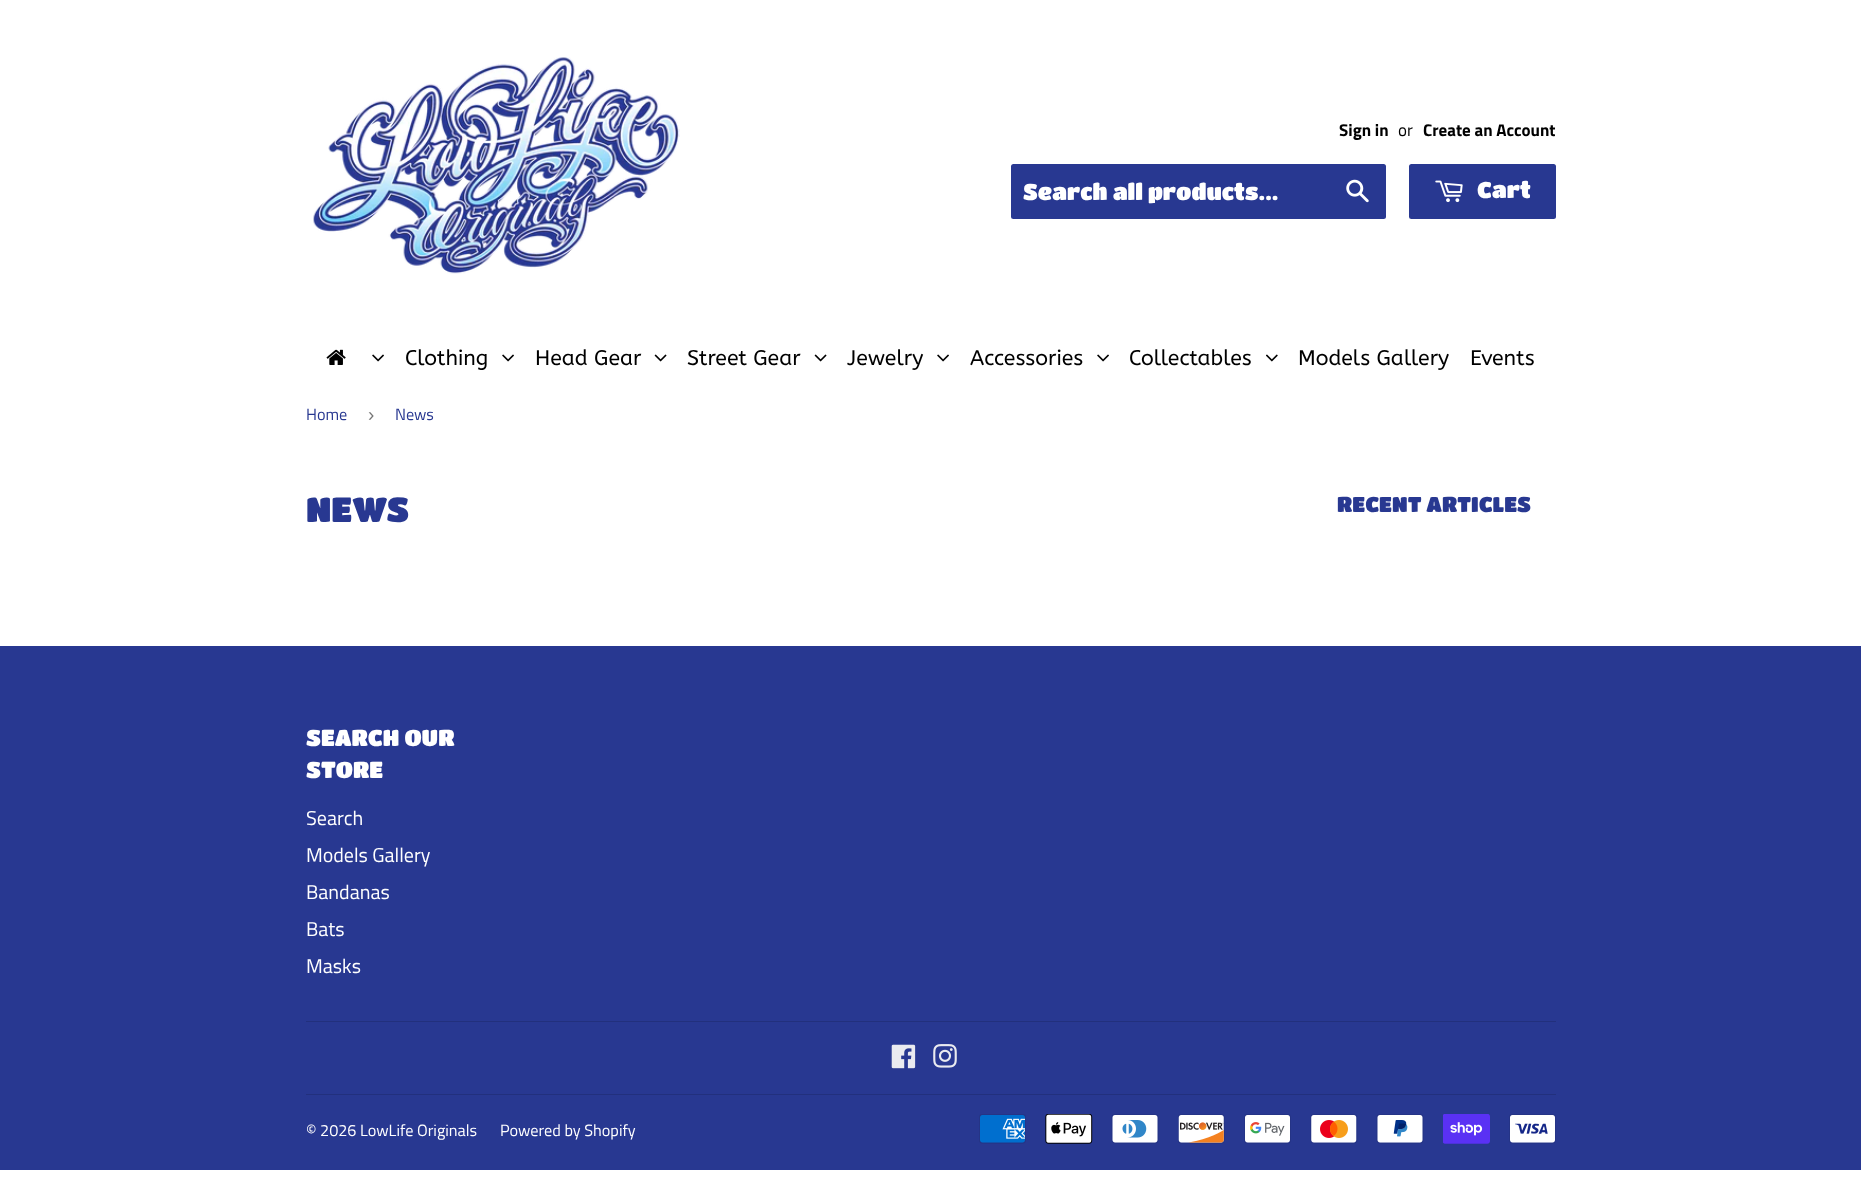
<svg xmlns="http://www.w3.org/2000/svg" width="1861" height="1178">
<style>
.a{font:bold 17px Titillium Web;fill:#000}
.b{font:17px Titillium Web;fill:#000}
.c{font:22.5px Titan One;fill:#fff}
.d{font:21.25px ABeeZee;fill:#000}
.e{font:16.25px Titillium Web;fill:#283891}
.f{font:19px Liberation Sans;fill:#767676}
.g{font:34.5px Titan One;fill:#283891}
.h{font:21.25px Titan One;fill:#283891}
.i{font:22.75px Titan One;fill:#fff}
.j{font:20px Titillium Web;fill:#fff}
.k{font:16.25px Titillium Web;fill:#fff}
</style>
<rect width="100%" height="100%" fill="#fff"/>
<image href="1.png" x="313" y="57" width="367" height="217"/>
<rect fill="#283891" x="1011" y="164" width="375" height="55" rx="2.5"/>
<image href="2.png" x="1346" y="179" width="23" height="24"/>
<rect fill="#283891" x="1409" y="164" width="147" height="55" rx="2.5"/>
<image href="3.png" x="1435" y="180" width="28" height="23"/>
<image href="4.png" x="326" y="349" width="20" height="16"/>
<image href="5.png" x="372" y="354" width="12" height="8"/>
<image href="5.png" x="502" y="354" width="12" height="8"/>
<image href="6.png" x="654" y="354" width="13" height="8"/>
<image href="6.png" x="814" y="354" width="13" height="8"/>
<image href="5.png" x="937" y="354" width="12" height="8"/>
<image href="5.png" x="1097" y="354" width="12" height="8"/>
<image href="7.png" x="1266" y="354" width="12" height="8"/>
<path fill="#283891" d="M0 646h1861v524H0z"/>
<path fill="#22307d" d="M306 1021h1250v1H306z"/>
<image href="8.png" x="891" y="1044" width="25" height="25"/>
<image href="9.png" x="933" y="1044" width="24" height="24"/>
<path fill="#22307d" d="M306 1094h1250v1H306z"/>
<image href="10.png" x="979" y="1114" width="47" height="30"/>
<image href="11.png" x="1045" y="1114" width="48" height="30"/>
<image href="12.png" x="1111" y="1114" width="48" height="30"/>
<image href="13.png" x="1178" y="1114" width="47" height="30"/>
<image href="14.png" x="1244" y="1114" width="47" height="30"/>
<image href="15.png" x="1310" y="1114" width="48" height="30"/>
<image href="16.png" x="1376" y="1114" width="48" height="30"/>
<image href="17.png" x="1443" y="1114" width="47" height="30"/>
<image href="18.png" x="1509" y="1114" width="47" height="30"/>
<text class="a" x="1339" y="136">Sign in</text>
<text class="b" x="1398" y="136">or</text>
<text class="a" x="1423" y="136">Create an Account</text>
<text class="c" x="1023" y="200">Search all products...</text>
<text class="c" x="1477" y="198">Cart</text>
<text class="d" x="405" y="365">Clothing</text>
<text class="d" x="535" y="365">Head Gear</text>
<text class="d" x="687" y="365">Street Gear</text>
<text class="d" x="847" y="365">Jewelry</text>
<text class="d" x="970" y="365">Accessories</text>
<text class="d" x="1129" y="365">Collectables</text>
<text class="d" x="1298" y="365">Models Gallery</text>
<text class="d" x="1470" y="365">Events</text>
<text class="e" x="306" y="420">Home</text>
<text class="f" x="368" y="421">›</text>
<text class="e" x="395" y="420">News</text>
<text class="g" x="306" y="522">NEWS</text>
<text class="h" x="1337" y="512">RECENT ARTICLES</text>
<text class="i" x="306" y="746">SEARCH OUR</text>
<text class="i" x="306" y="778">STORE</text>
<text class="j" x="306" y="825">Search</text>
<text class="j" x="306" y="862">Models Gallery</text>
<text class="j" x="306" y="899">Bandanas</text>
<text class="j" x="306" y="936">Bats</text>
<text class="j" x="306" y="973">Masks</text>
<text class="k" x="306" y="1136">© 2026 LowLife Originals</text>
<text class="k" x="500" y="1136">Powered by Shopify</text>
</svg>
